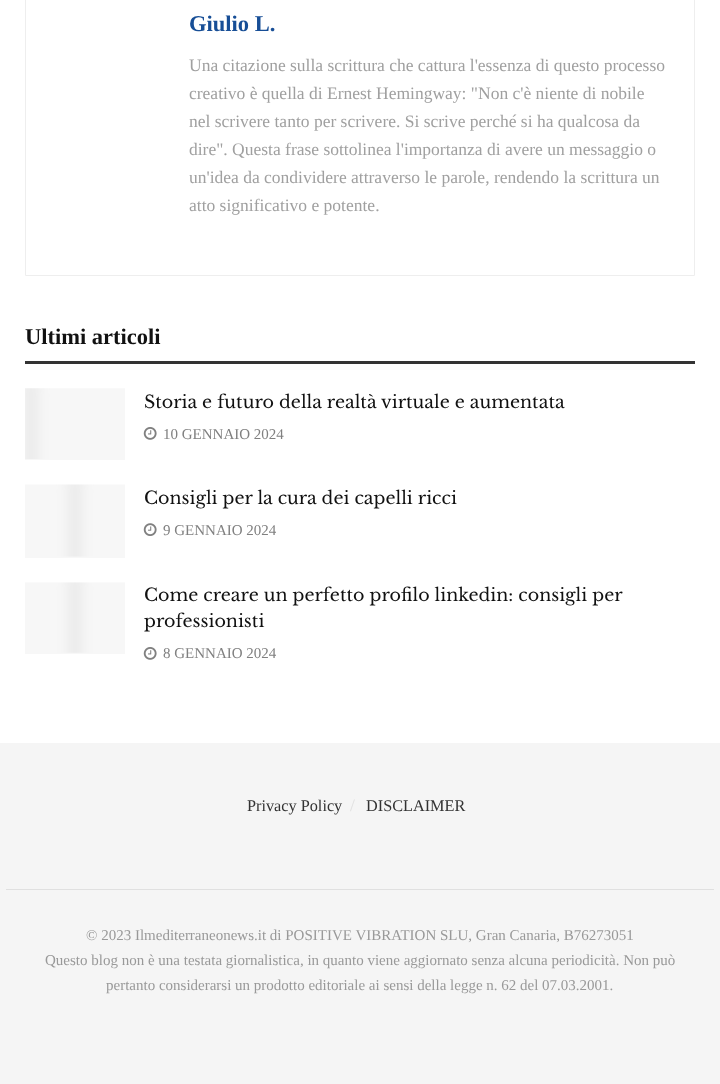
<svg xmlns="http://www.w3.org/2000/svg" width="720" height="1084">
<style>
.a{font:bold 22.5px Liberation Serif;fill:#174e96}
.b{font:17.5px Liberation Serif;fill:#a0a0a0}
.c{font:bold 22.5px Liberation Serif;fill:#111}
.d{font:17.5px Libre Baskerville;fill:#111}
.e{font:15px Liberation Serif;fill:#808080}
.f{font:16.25px Liberation Serif;fill:#333}
.g{font:17.5px Liberation Serif;fill:#e0e0e0}
.h{font:15px Liberation Serif;fill:#999}
</style>
<rect width="100%" height="100%" fill="#fff"/>
<path fill="none" stroke="#eee" d="M25.5 -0.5h669v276H25.5z"/>
<path fill="#333" d="M25 361h670v3H25z"/>
<path fill="#f7f7f7" d="M25 459h100v1H25z"/>
<image href="1.png" x="25" y="388" width="100" height="71"/>
<image href="2.png" x="143" y="427" width="14" height="13"/>
<path fill="#f7f7f7" d="M25 556h100v2H25z"/>
<image href="3.png" x="25" y="484" width="100" height="73"/>
<image href="4.png" x="143" y="523" width="14" height="13"/>
<path fill="#f7f7f7" d="M25 652h100v2H25z"/>
<image href="5.png" x="25" y="582" width="100" height="71"/>
<image href="2.png" x="143" y="647" width="14" height="13"/>
<path fill="#f5f5f5" d="M0 743h720v341H0z"/>
<path fill="#e0e0e0" d="M6 889h708v1H6z"/>
<text class="a" x="189" y="31">Giulio L.</text>
<text class="b" x="189" y="71">Una citazione sulla scrittura che cattura l'essenza di questo processo</text>
<text class="b" x="189" y="99">creativo è quella di Ernest Hemingway: "Non c'è niente di nobile</text>
<text class="b" x="189" y="127">nel scrivere tanto per scrivere. Si scrive perché si ha qualcosa da</text>
<text class="b" x="189" y="155">dire". Questa frase sottolinea l'importanza di avere un messaggio o</text>
<text class="b" x="189" y="183">un'idea da condividere attraverso le parole, rendendo la scrittura un</text>
<text class="b" x="189" y="211">atto significativo e potente.</text>
<text class="c" x="25" y="344">Ultimi articoli</text>
<text class="d" x="144" y="408">Storia e futuro della realtà virtuale e aumentata</text>
<text class="e" x="163" y="439">10 GENNAIO 2024</text>
<text class="d" x="144" y="504">Consigli per la cura dei capelli ricci</text>
<text class="e" x="163" y="535">9 GENNAIO 2024</text>
<text class="d" x="144" y="601">Come creare un perfetto profilo linkedin: consigli per</text>
<text class="d" x="144" y="627">professionisti</text>
<text class="e" x="163" y="658">8 GENNAIO 2024</text>
<text class="f" x="247" y="811">Privacy Policy</text>
<text class="g" x="350" y="811">/</text>
<text class="f" x="366" y="811">DISCLAIMER</text>
<text class="h" x="86" y="940">© 2023 Ilmediterraneonews.it di POSITIVE VIBRATION SLU, Gran Canaria, B76273051</text>
<text class="h" x="45" y="965">Questo blog non è una testata giornalistica, in quanto viene aggiornato senza alcuna periodicità. Non può</text>
<text class="h" x="106" y="990">pertanto considerarsi un prodotto editoriale ai sensi della legge n. 62 del 07.03.2001.</text>
</svg>
